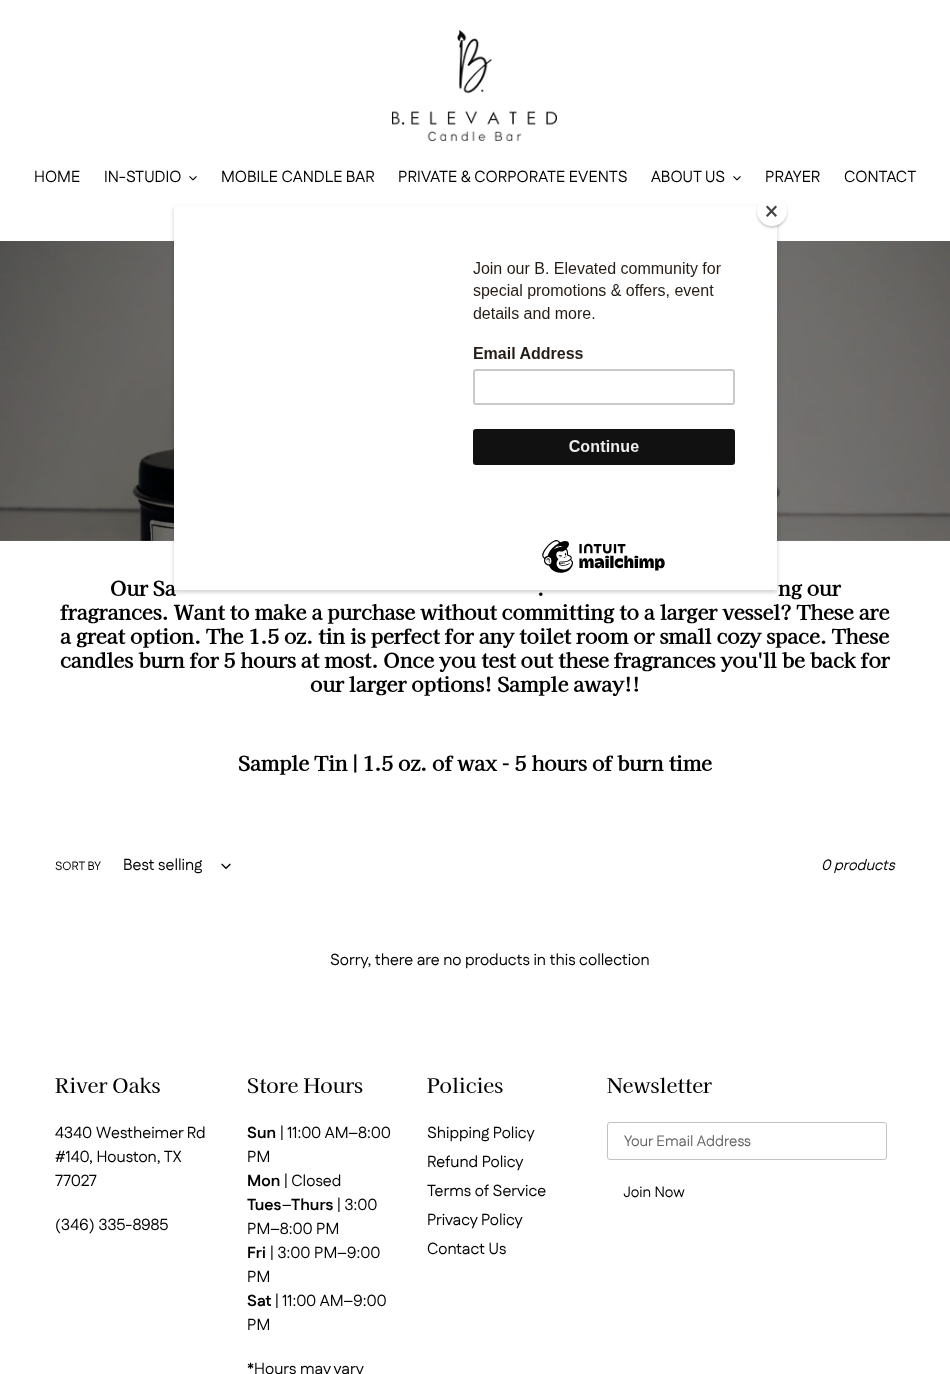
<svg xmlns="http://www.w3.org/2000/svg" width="950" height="1374">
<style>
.a{font:16px Fustat;fill:#000}
.b{font:bold 20px Kaisei Opti;fill:#000}
.c{font:12px Fustat;fill:#000}
.d{font:italic 15px Fustat;fill:#000}
.e{font:500 20px Kaisei Opti;fill:#000}
.f{font:bold 16px Fustat;fill:#000}
.g{font:15px Fustat;fill:#666}
.h{font:15px Fustat;fill:#000}
</style>
<defs>
<clipPath id="clip1"><path d="M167 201h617v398h-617zm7 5h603v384h-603z" clip-rule="evenodd"/></clipPath>
</defs>
<rect width="100%" height="100%" fill="#fff"/>
<image href="1.png" x="392" y="30" width="165" height="111"/>
<image href="2.png" x="189" y="176" width="8" height="5"/>
<image href="2.png" x="733" y="176" width="8" height="5"/>
<rect fill="#00000033" filter="blur(1px)" x="757" y="198" width="30" height="30" rx="15"/>
<image href="4.png" x="0" y="241" width="950" height="300"/>
<g clip-path="url(#clip1)">
<path fill="#00000033" filter="blur(2px)" d="M174 208h603v384H174z"/>
</g>
<circle fill="#fff" cx="772" cy="211" r="15"/>
<path fill="#414141" d="M775.5 205.5l1.5 1.5l-9.5 10l-1.5-1.5z"/>
<path fill="#414141" d="M766 207l1.5-1.5l9.5 10l-1.5 1.5z"/>
<image href="5.png" x="221" y="863" width="10" height="6"/>
<rect fill="none" stroke="#bec3c8" x="607.5" y="1122.5" width="279" height="37" rx="2.5"/>
<text class="a" x="34" y="182">HOME</text>
<text class="a" x="104" y="182">IN-STUDIO</text>
<text class="a" x="221" y="182">MOBILE CANDLE BAR</text>
<text class="a" x="398" y="182">PRIVATE &amp; CORPORATE EVENTS</text>
<text class="a" x="651" y="182">ABOUT US</text>
<text class="a" x="765" y="182">PRAYER</text>
<text class="a" x="844" y="182">CONTACT</text>
<text class="b" x="110" y="596">Our Sa</text>
<image href="3.png" x="174" y="241" width="603" height="349"/>
<text class="b" x="537" y="596">.</text>
<text class="b" x="778" y="596">ng our</text>
<text class="b" x="60" y="620">fragrances. Want to make a purchase without committing to a larger vessel? These are</text>
<text class="b" x="60" y="644">a great option. The 1.5 oz. tin is perfect for any toilet room or small cozy space. These</text>
<text class="b" x="60" y="668">candles burn for 5 hours at most. Once you test out these fragrances you'll be back for</text>
<text class="b" x="310" y="692">our larger options! Sample away!!</text>
<text class="b" x="238" y="771">Sample Tin | 1.5 oz. of wax - 5 hours of burn time</text>
<text class="c" x="55" y="870">SORT BY</text>
<text class="a" x="123" y="870">Best selling</text>
<text class="d" x="821" y="870">0 products</text>
<text class="a" x="330" y="965">Sorry, there are no products in this collection</text>
<text class="e" x="55" y="1093">River Oaks</text>
<text class="a" x="55" y="1138">4340 Westheimer Rd</text>
<text class="a" x="55" y="1162">#140, Houston, TX</text>
<text class="a" x="55" y="1186">77027</text>
<text class="a" x="55" y="1230">(346) 335-8985</text>
<text class="e" x="247" y="1093">Store Hours</text>
<text class="f" x="247" y="1138">Sun</text>
<text class="a" x="280" y="1138">| 11:00 AM–8:00</text>
<text class="a" x="247" y="1162">PM</text>
<text class="f" x="247" y="1186">Mon</text>
<text class="a" x="284" y="1186">| Closed</text>
<text class="f" x="247" y="1210">Tues</text>
<text class="a" x="282" y="1210">–</text>
<text class="f" x="291" y="1210">Thurs</text>
<text class="a" x="337" y="1210">| 3:00</text>
<text class="a" x="247" y="1234">PM–8:00 PM</text>
<text class="f" x="247" y="1258">Fri</text>
<text class="a" x="270" y="1258">| 3:00 PM–9:00</text>
<text class="a" x="247" y="1282">PM</text>
<text class="f" x="247" y="1306">Sat</text>
<text class="a" x="275" y="1306">| 11:00 AM–9:00</text>
<text class="a" x="247" y="1330">PM</text>
<text class="a" x="247" y="1374">*Hours may vary</text>
<text class="e" x="427" y="1093">Policies</text>
<text class="a" x="427" y="1138">Shipping Policy</text>
<text class="a" x="427" y="1167">Refund Policy</text>
<text class="a" x="427" y="1196">Terms of Service</text>
<text class="a" x="427" y="1225">Privacy Policy</text>
<text class="a" x="427" y="1254">Contact Us</text>
<text class="e" x="607" y="1093">Newsletter</text>
<text class="g" x="624" y="1146">Your Email Address</text>
<text class="h" x="623" y="1197">Join Now</text>
</svg>
